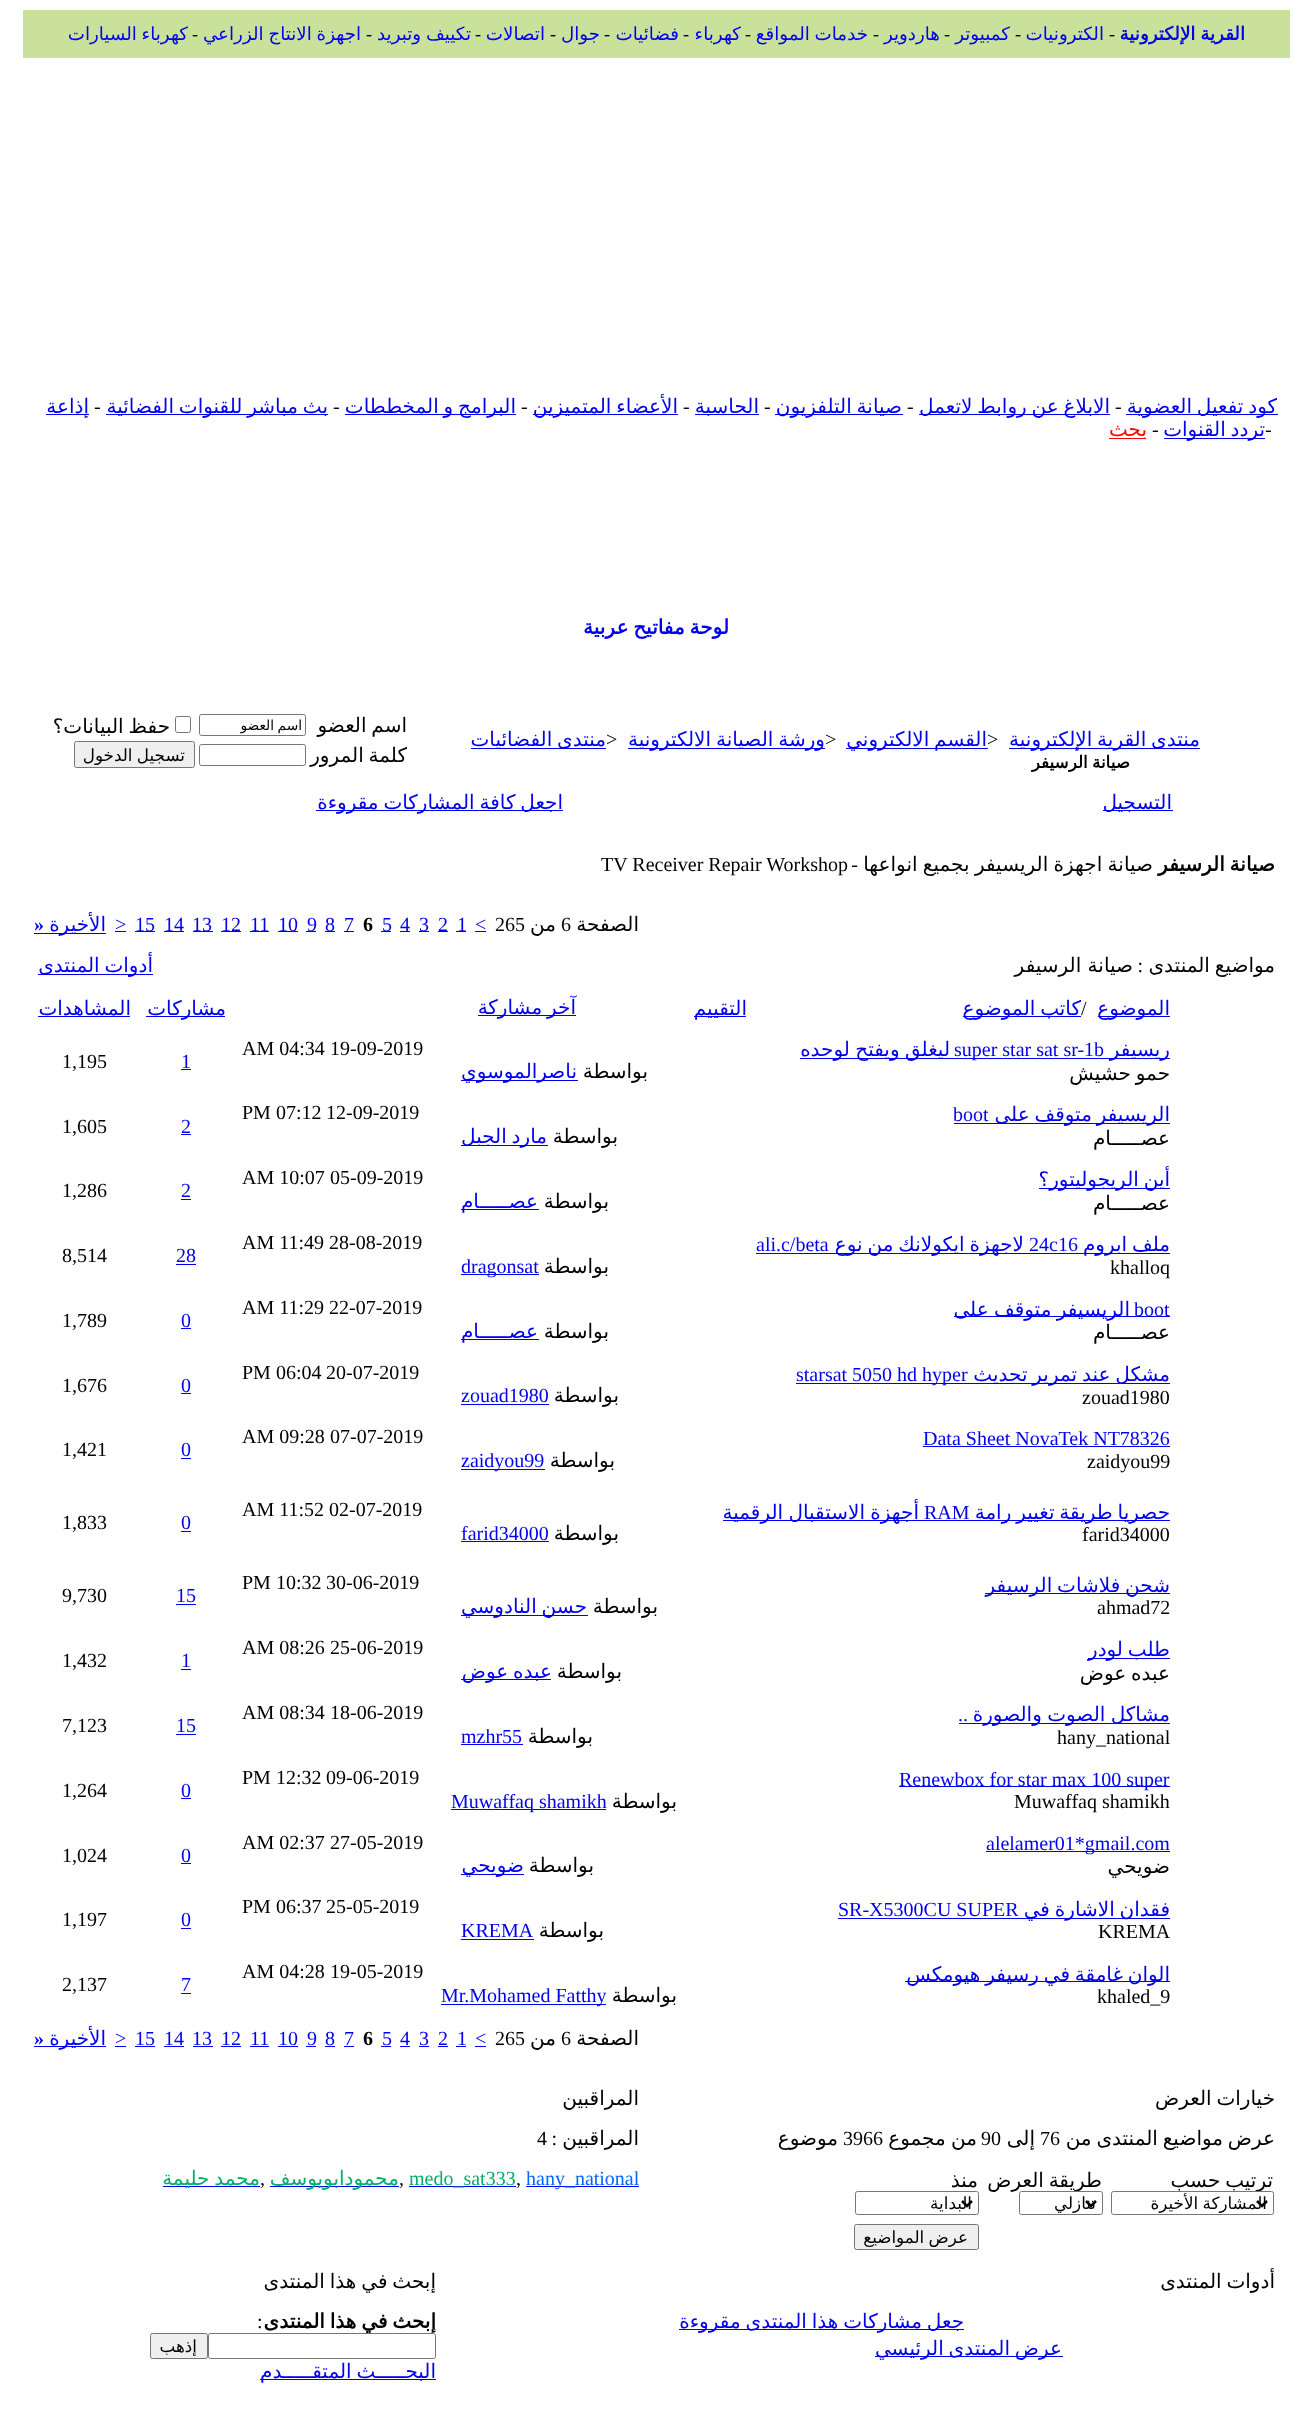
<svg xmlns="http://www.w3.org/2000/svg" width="1312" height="2412">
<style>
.a{font:bold 18.25px DejaVu Sans;direction:rtl;fill:#00e}
.b{font:18.25px Liberation Serif;fill:#000}
.c{font:18.25px DejaVu Sans;direction:rtl;fill:#00e}
.d{font:20px DejaVu Sans;direction:rtl;fill:#00e}
.e{font:20px Liberation Serif;fill:#000}
.f{font:20px DejaVu Sans;direction:rtl;fill:#f00}
.g{font:bold 20px DejaVu Sans;direction:rtl;fill:#00e}
.h{font:bold 16.75px DejaVu Sans;direction:rtl;fill:#000}
.i{font:20px DejaVu Sans;direction:rtl;fill:#000}
.j{font:13.75px DejaVu Sans;direction:rtl;fill:#000}
.k{font:16.75px DejaVu Sans;direction:rtl;fill:#000}
.l{font:bold 20px DejaVu Sans;direction:rtl;fill:#000}
.m{font:20px Liberation Serif;direction:rtl;fill:#000}
.n{font:20px Liberation Serif;fill:#00e}
.o{font:bold 20px Liberation Serif;fill:#000}
.p{font:bold 20px Liberation Serif;fill:#00e}
.q{font:20px Liberation Serif;direction:rtl;fill:#00e}
.r{font:20px Liberation Serif;fill:#06f}
.s{font:20px Liberation Serif;fill:#02b06a}
.t{font:20px DejaVu Sans;direction:rtl;fill:#02b06a}
</style>
<rect width="100%" height="100%" fill="#fff"/>
<path fill="#c9e19b" d="M23 10h1267v48H23z"/>
<path fill="#00e" d="M1126 414h152v1H1126z"/>
<path fill="#00e" d="M919 414h191v1H919z"/>
<path fill="#00e" d="M775 414h128v1H775z"/>
<path fill="#00e" d="M695 414h64v1H695z"/>
<path fill="#00e" d="M533 414h145v1H533z"/>
<path fill="#00e" d="M345 414h171v1H345z"/>
<path fill="#00e" d="M106 414h222v1H106z"/>
<path fill="#00e" d="M46 414h43v1H46z"/>
<path fill="#00e" d="M1164 438h101v1H1164z"/>
<path fill="#f00" d="M1109 438h37v1H1109z"/>
<path fill="#00e" d="M1009 748h191v1H1009z"/>
<path fill="#00e" d="M846 748h142v1H846z"/>
<path fill="#00e" d="M628 748h197v1H628z"/>
<path fill="#00e" d="M471 748h135v1H471z"/>
<rect fill="none" stroke="#767676" x="199.5" y="714.5" width="106" height="21" rx="2"/>
<rect fill="none" stroke="#767676" x="175.5" y="716.5" width="15" height="16" rx="2"/>
<rect fill="none" stroke="#767676" x="199.5" y="744.5" width="106" height="21" rx="2"/>
<rect fill="#efefef" stroke="#767676" x="74.5" y="741.5" width="120" height="26" rx="2"/>
<path fill="#00e" d="M1103 810h70v1H1103z"/>
<path fill="#00e" d="M316 810h247v1H316z"/>
<path fill="#00e" d="M475 931h11v1H475z"/>
<path fill="#00e" d="M456 931h10v1H456z"/>
<path fill="#00e" d="M438 931h10v1H438z"/>
<path fill="#00e" d="M419 931h10v1H419z"/>
<path fill="#00e" d="M400 931h10v1H400z"/>
<path fill="#00e" d="M381 931h10v1H381z"/>
<path fill="#00e" d="M344 931h10v1H344z"/>
<path fill="#00e" d="M325 931h10v1H325z"/>
<path fill="#00e" d="M306 931h10v1H306z"/>
<path fill="#00e" d="M278 931h20v1H278z"/>
<path fill="#00e" d="M250 931h19v1H250z"/>
<path fill="#00e" d="M221 931h20v1H221z"/>
<path fill="#00e" d="M193 931h20v1H193z"/>
<path fill="#00e" d="M164 931h20v1H164z"/>
<path fill="#00e" d="M135 931h20v1H135z"/>
<path fill="#00e" d="M115 931h11v1H115z"/>
<path fill="#00e" d="M34 933h72v1H34z"/>
<path fill="#00e" d="M38 974h115v1H38z"/>
<path fill="#00e" d="M1098 1016h72v1H1098z"/>
<path fill="#00e" d="M963 1016h118v1H963z"/>
<path fill="#00e" d="M694 1016h52v1H694z"/>
<path fill="#00e" d="M478 1015h98v1H478z"/>
<path fill="#00e" d="M146 1016h79v1H146z"/>
<path fill="#00e" d="M38 1016h92v1H38z"/>
<path fill="#00e" d="M800 1058h370v1H800z"/>
<path fill="#00e" d="M461 1080h117v1H461z"/>
<path fill="#00e" d="M181 1069h10v1H181z"/>
<path fill="#00e" d="M954 1123h216v1H954z"/>
<path fill="#00e" d="M461 1145h87v1H461z"/>
<path fill="#00e" d="M181 1134h10v1H181z"/>
<path fill="#00e" d="M1039 1188h131v1H1039z"/>
<path fill="#00e" d="M461 1209h78v1H461z"/>
<path fill="#00e" d="M181 1199h10v1H181z"/>
<path fill="#00e" d="M829 1253h341v1H829z"/>
<path fill="#00e" d="M756 1253h73v1H756z"/>
<path fill="#00e" d="M461 1274h78v1H461z"/>
<path fill="#00e" d="M176 1264h20v1H176z"/>
<path fill="#00e" d="M954 1316h216v1H954z"/>
<path fill="#00e" d="M461 1339h78v1H461z"/>
<path fill="#00e" d="M181 1328h10v1H181z"/>
<path fill="#00e" d="M796 1383h374v1H796z"/>
<path fill="#00e" d="M461 1404h88v1H461z"/>
<path fill="#00e" d="M181 1393h10v1H181z"/>
<path fill="#00e" d="M923 1446h247v1H923z"/>
<path fill="#00e" d="M461 1469h84v1H461z"/>
<path fill="#00e" d="M181 1458h10v1H181z"/>
<path fill="#00e" d="M723 1520h447v1H723z"/>
<path fill="#00e" d="M461 1541h88v1H461z"/>
<path fill="#00e" d="M181 1531h10v1H181z"/>
<path fill="#00e" d="M985 1593h185v1H985z"/>
<path fill="#00e" d="M461 1615h127v1H461z"/>
<path fill="#00e" d="M176 1604h20v1H176z"/>
<path fill="#00e" d="M1088 1658h82v1H1088z"/>
<path fill="#00e" d="M461 1679h90v1H461z"/>
<path fill="#00e" d="M181 1669h10v1H181z"/>
<path fill="#00e" d="M959 1723h211v1H959z"/>
<path fill="#00e" d="M461 1744h62v1H461z"/>
<path fill="#00e" d="M176 1734h20v1H176z"/>
<path fill="#00e" d="M899 1786h271v1H899z"/>
<path fill="#00e" d="M451 1809h155v1H451z"/>
<path fill="#00e" d="M181 1798h10v1H181z"/>
<path fill="#00e" d="M986 1851h184v1H986z"/>
<path fill="#00e" d="M461 1874h63v1H461z"/>
<path fill="#00e" d="M181 1863h10v1H181z"/>
<path fill="#00e" d="M838 1918h332v1H838z"/>
<path fill="#00e" d="M461 1939h73v1H461z"/>
<path fill="#00e" d="M181 1928h10v1H181z"/>
<path fill="#00e" d="M905 1981h265v1H905z"/>
<path fill="#00e" d="M441 2004h165v1H441z"/>
<path fill="#00e" d="M181 1993h10v1H181z"/>
<path fill="#00e" d="M475 2046h11v1H475z"/>
<path fill="#00e" d="M456 2046h10v1H456z"/>
<path fill="#00e" d="M438 2046h10v1H438z"/>
<path fill="#00e" d="M419 2046h10v1H419z"/>
<path fill="#00e" d="M400 2046h10v1H400z"/>
<path fill="#00e" d="M381 2046h10v1H381z"/>
<path fill="#00e" d="M344 2046h10v1H344z"/>
<path fill="#00e" d="M325 2046h10v1H325z"/>
<path fill="#00e" d="M306 2046h10v1H306z"/>
<path fill="#00e" d="M278 2046h20v1H278z"/>
<path fill="#00e" d="M250 2046h19v1H250z"/>
<path fill="#00e" d="M221 2046h20v1H221z"/>
<path fill="#00e" d="M193 2046h20v1H193z"/>
<path fill="#00e" d="M164 2046h20v1H164z"/>
<path fill="#00e" d="M135 2046h20v1H135z"/>
<path fill="#00e" d="M115 2046h11v1H115z"/>
<path fill="#00e" d="M34 2046h72v1H34z"/>
<rect fill="none" stroke="#767676" x="855.5" y="2191.5" width="123" height="23" rx="2"/>
<path fill="none" stroke="#000" stroke-width="2.5" d="M962 2201l5 5l5-5"/>
<rect fill="#efefef" stroke="#767676" x="854.5" y="2224.5" width="124" height="25" rx="2"/>
<path fill="#00e" d="M526 2186h113v1H526z"/>
<path fill="#00e" d="M409 2186h107v1H409z"/>
<path fill="#00e" d="M270 2186h129v1H270z"/>
<path fill="#00e" d="M163 2186h97v1H163z"/>
<path fill="#00e" d="M679 2329h285v1H679z"/>
<path fill="#00e" d="M875 2356h188v1H875z"/>
<rect fill="none" stroke="#767676" x="208.5" y="2333.5" width="227" height="25" rx="2"/>
<rect fill="#efefef" stroke="#767676" x="150.5" y="2333.5" width="57" height="25" rx="2"/>
<path fill="#00e" d="M260 2379h176v1H260z"/>
<text class="a" x="1245" y="40" word-spacing="-1">القرية الإلكترونية</text>
<text class="b" x="1109" y="40">-</text>
<text class="c" x="1104" y="40">الكترونيات</text>
<text class="b" x="1015" y="40">-</text>
<text class="c" x="1010" y="40">كمبيوتر</text>
<text class="b" x="944" y="40">-</text>
<text class="c" x="940" y="40">هاردوير</text>
<text class="b" x="873" y="40">-</text>
<text class="c" x="868" y="40" word-spacing="-1">خدمات المواقع</text>
<text class="b" x="745" y="40">-</text>
<text class="c" x="741" y="40">كهرباء</text>
<text class="b" x="683" y="40">-</text>
<text class="c" x="679" y="40">فضائيات</text>
<text class="b" x="604" y="40">-</text>
<text class="c" x="600" y="40">جوال</text>
<text class="b" x="550" y="40">-</text>
<text class="c" x="545" y="40">اتصالات</text>
<text class="b" x="475" y="40">-</text>
<text class="c" x="471" y="40" word-spacing="-1">تكييف وتبريد</text>
<text class="b" x="366" y="40">-</text>
<text class="c" x="361" y="40" word-spacing="-1">اجهزة الانتاج الزراعي</text>
<text class="b" x="192" y="40">-</text>
<text class="c" x="188" y="40" word-spacing="-1">كهرباء السيارات</text>
<text class="d" x="1277" y="413" word-spacing="-1.5">كود تفعيل العضوية</text>
<text class="e" x="1115" y="413">-</text>
<text class="d" x="1110" y="413" word-spacing="-1.5">الابلاغ عن روابط لاتعمل</text>
<text class="e" x="907" y="413">-</text>
<text class="d" x="902" y="413" word-spacing="-1.5">صيانة التلفزيون</text>
<text class="e" x="764" y="413">-</text>
<text class="d" x="759" y="413">الحاسبة</text>
<text class="e" x="683" y="413">-</text>
<text class="d" x="678" y="413" word-spacing="-1.5">الأعضاء المتميزين</text>
<text class="e" x="521" y="413">-</text>
<text class="d" x="516" y="413" word-spacing="-1.5">البرامج و المخططات</text>
<text class="e" x="333" y="413">-</text>
<text class="d" x="328" y="413" word-spacing="-1.5">بث مباشر للقنوات الفضائية</text>
<text class="e" x="94" y="413">-</text>
<text class="d" x="89" y="413">إذاعة</text>
<text class="e" x="1265" y="436">-</text>
<text class="d" x="1265" y="436" word-spacing="-1.5">تردد القنوات</text>
<text class="e" x="1152" y="436">-</text>
<text class="f" x="1147" y="436">بحث</text>
<text class="g" x="729" y="634" word-spacing="-1.5">لوحة مفاتيح عربية</text>
<text class="d" x="1200" y="746" word-spacing="-1.5">منتدى القرية الإلكترونية</text>
<text class="e" x="987" y="746">&gt;</text>
<text class="d" x="987" y="746" word-spacing="-1.5">القسم الالكتروني</text>
<text class="e" x="825" y="746">&gt;</text>
<text class="d" x="825" y="746" word-spacing="-1.5">ورشة الصيانة الالكترونية</text>
<text class="e" x="606" y="746">&gt;</text>
<text class="d" x="606" y="746" word-spacing="-1.5">منتدى الفضائيات</text>
<text class="h" x="1130" y="768" word-spacing="-1">صيانة الرسيفر</text>
<text class="i" x="407" y="732" word-spacing="-1.5">اسم العضو</text>
<text class="j" x="302" y="730" word-spacing="-1">اسم العضو</text>
<text class="i" x="170" y="733" word-spacing="-1.5">حفظ البيانات؟</text>
<text class="i" x="407" y="762" word-spacing="-1.5">كلمة المرور</text>
<text class="k" x="185" y="761" word-spacing="-1">تسجيل الدخول</text>
<text class="d" x="1172" y="809">التسجيل</text>
<text class="d" x="563" y="809" word-spacing="-1.5">اجعل كافة المشاركات مقروءة</text>
<text class="l" x="1275" y="871" word-spacing="-1.5">صيانة الرسيفر</text>
<text class="i" x="1153" y="871" word-spacing="-1">صيانة اجهزة الريسيفر بجميع انواعها</text>
<text class="m" x="858" y="871">-</text>
<text class="e" x="601" y="871">TV Receiver Repair Workshop</text>
<text class="i" x="639" y="931">الصفحة</text>
<text class="e" x="561" y="931">6</text>
<text class="i" x="556" y="931">من</text>
<text class="e" x="495" y="931">265</text>
<text class="n" x="475" y="931">&lt;</text>
<text class="n" x="457" y="931">1</text>
<text class="n" x="438" y="931">2</text>
<text class="n" x="419" y="931">3</text>
<text class="n" x="400" y="931">4</text>
<text class="n" x="382" y="931">5</text>
<text class="o" x="363" y="931">6</text>
<text class="n" x="344" y="931">7</text>
<text class="n" x="325" y="931">8</text>
<text class="n" x="307" y="931">9</text>
<text class="n" x="278" y="931">10</text>
<text class="n" x="250" y="931">11</text>
<text class="n" x="221" y="931">12</text>
<text class="n" x="192" y="931">13</text>
<text class="n" x="164" y="931">14</text>
<text class="n" x="135" y="931">15</text>
<text class="n" x="115" y="931">&gt;</text>
<text class="d" x="106" y="931">الأخيرة</text>
<text class="p" x="34" y="931">»</text>
<text class="i" x="1275" y="972" word-spacing="-1.5">مواضيع المنتدى</text>
<text class="m" x="1143" y="972">:</text>
<text class="i" x="1133" y="972">صيانة الرسيفر</text>
<text class="d" x="153" y="972" word-spacing="-1.5">أدوات المنتدى</text>
<text class="d" x="1170" y="1015">الموضوع</text>
<text class="e" x="1081" y="1015">/</text>
<text class="d" x="1081" y="1015" word-spacing="-1.5">كاتب الموضوع</text>
<text class="d" x="747" y="1015">التقييم</text>
<text class="d" x="576" y="1014" word-spacing="-1.5">آخر مشاركة</text>
<text class="d" x="226" y="1015">مشاركات</text>
<text class="d" x="131" y="1015">المشاهدات</text>
<text class="d" x="1170" y="1056">ريسيفر</text>
<text class="n" x="954" y="1056">super star sat sr-1b</text>
<text class="d" x="950" y="1056" word-spacing="-1">ليغلق ويفتح لوحده</text>
<text class="i" x="1170" y="1080" word-spacing="-1.5">حمو حشيش</text>
<text class="e" x="330" y="1055">19-09-2019</text>
<text class="e" x="242" y="1055">AM 04:34</text>
<text class="i" x="648" y="1078">بواسطة</text>
<text class="d" x="577" y="1078">ناصرالموسوي</text>
<text class="n" x="181" y="1068">1</text>
<text class="e" x="62" y="1068">1,195</text>
<text class="d" x="1170" y="1121" word-spacing="-1.5">الريسيفر متوقف على</text>
<text class="n" x="953" y="1121">boot</text>
<text class="i" x="1170" y="1145">عصـــــام</text>
<text class="e" x="326" y="1119">12-09-2019</text>
<text class="e" x="242" y="1119">PM 07:12</text>
<text class="i" x="618" y="1143">بواسطة</text>
<text class="d" x="547" y="1143" word-spacing="-1.5">مارد الجبل</text>
<text class="n" x="181" y="1133">2</text>
<text class="e" x="62" y="1133">1,605</text>
<text class="d" x="1170" y="1186" word-spacing="-1.5">أين الريجوليتور؟</text>
<text class="i" x="1170" y="1210">عصـــــام</text>
<text class="e" x="330" y="1184">05-09-2019</text>
<text class="e" x="242" y="1184">AM 10:07</text>
<text class="i" x="609" y="1208">بواسطة</text>
<text class="d" x="538" y="1208">عصـــــام</text>
<text class="n" x="181" y="1197">2</text>
<text class="e" x="62" y="1197">1,286</text>
<text class="d" x="1170" y="1251" word-spacing="-1.5">ملف ابروم</text>
<text class="n" x="1029" y="1251">24c16</text>
<text class="d" x="1024" y="1251" word-spacing="-1.5">لاجهزة ايكولانك من نوع</text>
<text class="n" x="756" y="1251">ali.c/beta</text>
<text class="e" x="1110" y="1274">khalloq</text>
<text class="e" x="329" y="1249">28-08-2019</text>
<text class="e" x="242" y="1249">AM 11:49</text>
<text class="i" x="609" y="1273">بواسطة</text>
<text class="n" x="461" y="1273">dragonsat</text>
<text class="n" x="176" y="1262">28</text>
<text class="e" x="62" y="1262">8,514</text>
<text class="n" x="1134" y="1316">boot</text>
<text class="d" x="1130" y="1316" word-spacing="-1">الريسيفر متوقف على</text>
<text class="i" x="1170" y="1339">عصـــــام</text>
<text class="e" x="329" y="1314">22-07-2019</text>
<text class="e" x="242" y="1314">AM 11:29</text>
<text class="i" x="609" y="1338">بواسطة</text>
<text class="d" x="538" y="1338">عصـــــام</text>
<text class="n" x="181" y="1327">0</text>
<text class="e" x="62" y="1327">1,789</text>
<text class="d" x="1170" y="1381" word-spacing="-1.5">مشكل عند تمرير تحديث</text>
<text class="n" x="796" y="1381">starsat 5050 hd hyper</text>
<text class="e" x="1082" y="1404">zouad1980</text>
<text class="e" x="326" y="1379">20-07-2019</text>
<text class="e" x="242" y="1379">PM 06:04</text>
<text class="i" x="619" y="1402">بواسطة</text>
<text class="n" x="461" y="1402">zouad1980</text>
<text class="n" x="181" y="1392">0</text>
<text class="e" x="62" y="1392">1,676</text>
<text class="n" x="923" y="1445">Data Sheet NovaTek NT78326</text>
<text class="e" x="1087" y="1468">zaidyou99</text>
<text class="e" x="330" y="1443">07-07-2019</text>
<text class="e" x="242" y="1443">AM 09:28</text>
<text class="i" x="615" y="1467">بواسطة</text>
<text class="n" x="461" y="1467">zaidyou99</text>
<text class="n" x="181" y="1456">0</text>
<text class="e" x="62" y="1456">1,421</text>
<text class="d" x="1170" y="1519" word-spacing="-1.5">حصريا طريقة تغيير رامة</text>
<text class="n" x="924" y="1519">RAM</text>
<text class="d" x="919" y="1519" word-spacing="-1">أجهزة الاستقبال الرقمية</text>
<text class="e" x="1082" y="1541">farid34000</text>
<text class="e" x="329" y="1516">02-07-2019</text>
<text class="e" x="242" y="1516">AM 11:52</text>
<text class="i" x="619" y="1540">بواسطة</text>
<text class="n" x="461" y="1540">farid34000</text>
<text class="n" x="181" y="1529">0</text>
<text class="e" x="62" y="1529">1,833</text>
<text class="d" x="1170" y="1592" word-spacing="-1.5">شحن فلاشات الرسيفر</text>
<text class="e" x="1097" y="1614">ahmad72</text>
<text class="e" x="326" y="1589">30-06-2019</text>
<text class="e" x="242" y="1589">PM 10:32</text>
<text class="i" x="658" y="1613">بواسطة</text>
<text class="d" x="587" y="1613" word-spacing="-1.5">حسن النادوسي</text>
<text class="n" x="176" y="1602">15</text>
<text class="e" x="62" y="1602">9,730</text>
<text class="d" x="1170" y="1656" word-spacing="-1.5">طلب لودر</text>
<text class="i" x="1170" y="1680" word-spacing="-1.5">عبده عوض</text>
<text class="e" x="330" y="1654">25-06-2019</text>
<text class="e" x="242" y="1654">AM 08:26</text>
<text class="i" x="622" y="1678">بواسطة</text>
<text class="d" x="552" y="1678" word-spacing="-1.5">عبده عوض</text>
<text class="n" x="181" y="1667">1</text>
<text class="e" x="62" y="1667">1,432</text>
<text class="d" x="1170" y="1721" word-spacing="-1">مشاكل الصوت والصورة</text>
<text class="q" x="968" y="1721">..</text>
<text class="e" x="1057" y="1744">hany_national</text>
<text class="e" x="330" y="1719">18-06-2019</text>
<text class="e" x="242" y="1719">AM 08:34</text>
<text class="i" x="593" y="1743">بواسطة</text>
<text class="n" x="461" y="1743">mzhr55</text>
<text class="n" x="176" y="1732">15</text>
<text class="e" x="62" y="1732">7,123</text>
<text class="n" x="899" y="1786">Renewbox for star max 100 super</text>
<text class="e" x="1014" y="1808">Muwaffaq shamikh</text>
<text class="e" x="326" y="1784">09-06-2019</text>
<text class="e" x="242" y="1784">PM 12:32</text>
<text class="i" x="677" y="1808">بواسطة</text>
<text class="n" x="451" y="1808">Muwaffaq shamikh</text>
<text class="n" x="181" y="1797">0</text>
<text class="e" x="62" y="1797">1,264</text>
<text class="n" x="986" y="1850">alelamer01*gmail.com</text>
<text class="i" x="1170" y="1873">ضويحي</text>
<text class="e" x="330" y="1849">27-05-2019</text>
<text class="e" x="242" y="1849">AM 02:37</text>
<text class="i" x="594" y="1872">بواسطة</text>
<text class="d" x="524" y="1872">ضويحي</text>
<text class="n" x="181" y="1862">0</text>
<text class="e" x="62" y="1862">1,024</text>
<text class="d" x="1170" y="1916" word-spacing="-1.5">فقدان الاشارة في</text>
<text class="n" x="838" y="1916">SR-X5300CU SUPER</text>
<text class="e" x="1098" y="1938">KREMA</text>
<text class="e" x="326" y="1913">25-05-2019</text>
<text class="e" x="242" y="1913">PM 06:37</text>
<text class="i" x="604" y="1937">بواسطة</text>
<text class="n" x="461" y="1937">KREMA</text>
<text class="n" x="181" y="1926">0</text>
<text class="e" x="62" y="1926">1,197</text>
<text class="d" x="1170" y="1981" word-spacing="-1.5">الوان غامقة في رسيفر هيومكس</text>
<text class="e" x="1097" y="2003">khaled_9</text>
<text class="e" x="330" y="1978">19-05-2019</text>
<text class="e" x="242" y="1978">AM 04:28</text>
<text class="i" x="677" y="2002">بواسطة</text>
<text class="n" x="441" y="2002">Mr.Mohamed Fatthy</text>
<text class="n" x="181" y="1991">7</text>
<text class="e" x="62" y="1991">2,137</text>
<text class="i" x="639" y="2045">الصفحة</text>
<text class="e" x="561" y="2045">6</text>
<text class="i" x="556" y="2045">من</text>
<text class="e" x="495" y="2045">265</text>
<text class="n" x="475" y="2045">&lt;</text>
<text class="n" x="457" y="2045">1</text>
<text class="n" x="438" y="2045">2</text>
<text class="n" x="419" y="2045">3</text>
<text class="n" x="400" y="2045">4</text>
<text class="n" x="382" y="2045">5</text>
<text class="o" x="363" y="2045">6</text>
<text class="n" x="344" y="2045">7</text>
<text class="n" x="325" y="2045">8</text>
<text class="n" x="307" y="2045">9</text>
<text class="n" x="278" y="2045">10</text>
<text class="n" x="250" y="2045">11</text>
<text class="n" x="221" y="2045">12</text>
<text class="n" x="192" y="2045">13</text>
<text class="n" x="164" y="2045">14</text>
<text class="n" x="135" y="2045">15</text>
<text class="n" x="115" y="2045">&gt;</text>
<text class="d" x="106" y="2045">الأخيرة</text>
<text class="p" x="34" y="2045">»</text>
<text class="i" x="1275" y="2105" word-spacing="-1.5">خيارات العرض</text>
<text class="i" x="639" y="2105">المراقبين</text>
<text class="i" x="1275" y="2145" word-spacing="-1.5">عرض مواضيع المنتدى من</text>
<text class="e" x="1040" y="2145">76</text>
<text class="i" x="1035" y="2145">إلى</text>
<text class="e" x="981" y="2145">90</text>
<text class="i" x="977" y="2145" word-spacing="-1">من مجموع</text>
<text class="e" x="843" y="2145">3966</text>
<text class="i" x="838" y="2145">موضوع</text>
<text class="i" x="639" y="2145">المراقبين</text>
<text class="m" x="557" y="2145">:</text>
<text class="e" x="537" y="2145">4</text>
<text class="i" x="1273" y="2187" word-spacing="-1.5">ترتيب حسب</text>
<rect fill="#fff" stroke="#767676" x="1111.5" y="2191.5" width="162" height="23" rx="2"/>
<path fill="none" stroke="#000" stroke-width="2.5" d="M1257 2201l5 5l5-5"/>
<text class="k" x="1267" y="2209" word-spacing="-1">المشاركة الأخيرة</text>
<text class="i" x="1102" y="2187" word-spacing="-1.5">طريقة العرض</text>
<rect fill="#fff" stroke="#767676" x="1019.5" y="2191.5" width="83" height="23" rx="2"/>
<path fill="none" stroke="#000" stroke-width="2.5" d="M1086 2201l5 5l5-5"/>
<text class="k" x="1096" y="2209">تنازلي</text>
<text class="i" x="978" y="2187">منذ</text>
<text class="k" x="972" y="2209">البداية</text>
<text class="k" x="968" y="2243" word-spacing="-1">عرض المواضيع</text>
<text class="r" x="526" y="2185">hany_national</text>
<text class="e" x="516" y="2185">,</text>
<text class="s" x="409" y="2185">medo_sat333</text>
<text class="e" x="399" y="2185">,</text>
<text class="t" x="399" y="2185">محمودابويوسف</text>
<text class="e" x="260" y="2185">,</text>
<text class="t" x="260" y="2185" word-spacing="-1.5">محمد حليمة</text>
<text class="i" x="1275" y="2288" word-spacing="-1.5">أدوات المنتدى</text>
<text class="i" x="436" y="2288" word-spacing="-1.5">إبحث في هذا المنتدى</text>
<text class="d" x="964" y="2328" word-spacing="-1.5">جعل مشاركات هذا المنتدى مقروءة</text>
<text class="d" x="1062" y="2355" word-spacing="-1.5">عرض المنتدى الرئيسي</text>
<text class="l" x="436" y="2328" word-spacing="-1.5">إبحث في هذا المنتدى</text>
<text class="e" x="257" y="2328">:</text>
<text class="k" x="197" y="2352">إذهب</text>
<text class="d" x="436" y="2378" word-spacing="-1.5">البحـــــث المتقـــــدم</text>
</svg>
